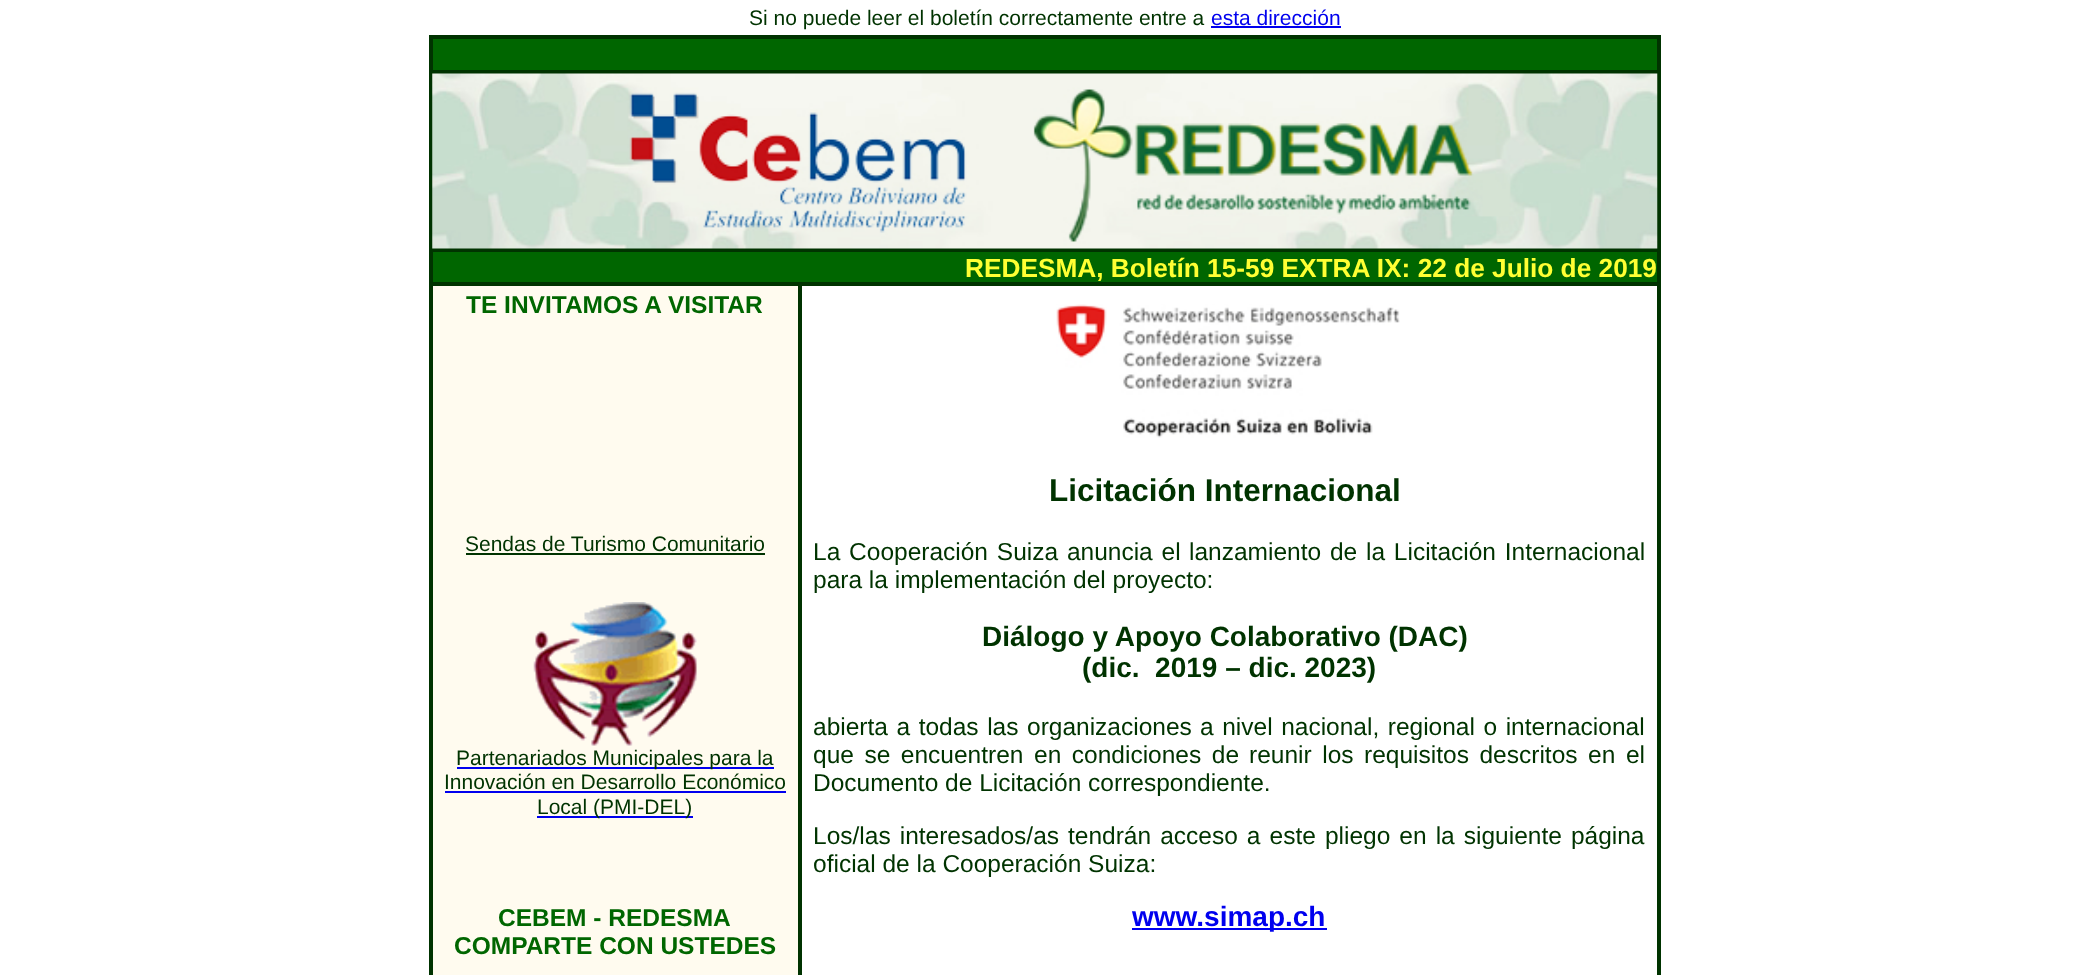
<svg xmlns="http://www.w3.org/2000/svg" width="2088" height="975">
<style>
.a{font:21px Liberation Sans;fill:#030}
.b{font:21px Liberation Sans;fill:#00e}
.c{font:bold 26.25px Liberation Sans;fill:#ff3}
.d{font:bold 24.5px Liberation Sans;fill:#060}
.e{font:bold 31.5px Liberation Sans;fill:#030}
.f{font:24.5px Liberation Sans;fill:#030}
.g{font:bold 28px Liberation Sans;fill:#030}
.h{font:bold 28px Liberation Sans;fill:#00e}
</style>
<rect width="100%" height="100%" fill="#fff"/>
<path fill="#00e" d="M1211 26h130v2H1211z"/>
<path fill="none" stroke="#030" stroke-width="2" d="M430 36h1230v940H430z"/>
<path fill="#060" stroke="#030" stroke-width="2" d="M432 38h1226v33H432z"/>
<path fill="none" stroke="#030" stroke-width="2" d="M432 73h1226v176H432z"/>
<image href="1.png" x="432" y="73" width="1226" height="176"/>
<path fill="#060" stroke="#030" stroke-width="2" d="M432 251h1226v32H432z"/>
<path fill="#fffbef" stroke="#030" stroke-width="2" d="M432 285h367v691H432z"/>
<path fill="#030" d="M466 553h299v2H466z"/>
<image href="2.png" x="533" y="602" width="164" height="144"/>
<path fill="#00e" d="M457 767h317v2H457z"/>
<path fill="#00e" d="M445 791h341v2H445z"/>
<path fill="#00e" d="M537 816h156v2H537z"/>
<path fill="none" stroke="#030" stroke-width="2" d="M801 285h857v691H801z"/>
<image href="3.png" x="1056" y="304" width="344" height="134"/>
<path fill="#00e" d="M1132 928h195v2H1132z"/>
<text class="a" x="749" y="25">Si no puede leer el boletín correctamente entre a</text>
<text class="b" x="1211" y="25">esta dirección</text>
<text class="c" x="965" y="277">REDESMA, Boletín 15-59 EXTRA IX: 22 de Julio de 2019</text>
<text class="d" x="466" y="313">TE INVITAMOS A VISITAR</text>
<text class="a" x="465" y="551">Sendas de Turismo Comunitario</text>
<text class="a" x="456" y="765">Partenariados Municipales para la</text>
<text class="a" x="444" y="789">Innovación en Desarrollo Económico</text>
<text class="a" x="537" y="814">Local (PMI-DEL)</text>
<text class="d" x="498" y="926">CEBEM - REDESMA</text>
<text class="d" x="454" y="954">COMPARTE CON USTEDES</text>
<text class="e" x="1049" y="501">Licitación Internacional</text>
<text class="f" x="813" y="560" word-spacing="2">La Cooperación Suiza anuncia el</text>
<text class="f" x="1189" y="560" word-spacing="2">lanzamiento de la Licitación Internacional</text>
<text class="f" x="813" y="588">para la implementación del proyecto:</text>
<text class="g" x="982" y="646">Diálogo y Apoyo Colaborativo (DAC)</text>
<text class="g" xml:space="preserve" x="1082" y="677">(dic.  2019 – dic. 2023)</text>
<text class="f" x="813" y="735" word-spacing="1.75">abierta a todas las organizaciones</text>
<text class="f" x="1200" y="735" word-spacing="1.75">a nivel nacional, regional o internacional</text>
<text class="f" x="813" y="763" word-spacing="3.75">que se encuentren en condiciones de</text>
<text class="f" x="1249" y="763" word-spacing="3.75">reunir los requisitos descritos en el</text>
<text class="f" x="813" y="791">Documento de Licitación correspondiente.</text>
<text class="f" x="813" y="844" word-spacing="2.25">Los/las interesados/as</text>
<text class="f" x="1068" y="844" word-spacing="2.25">tendrán acceso a este pliego en la siguiente página</text>
<text class="f" x="813" y="872">oficial de la Cooperación Suiza:</text>
<text class="h" x="1132" y="926">www.simap.ch</text>
</svg>
